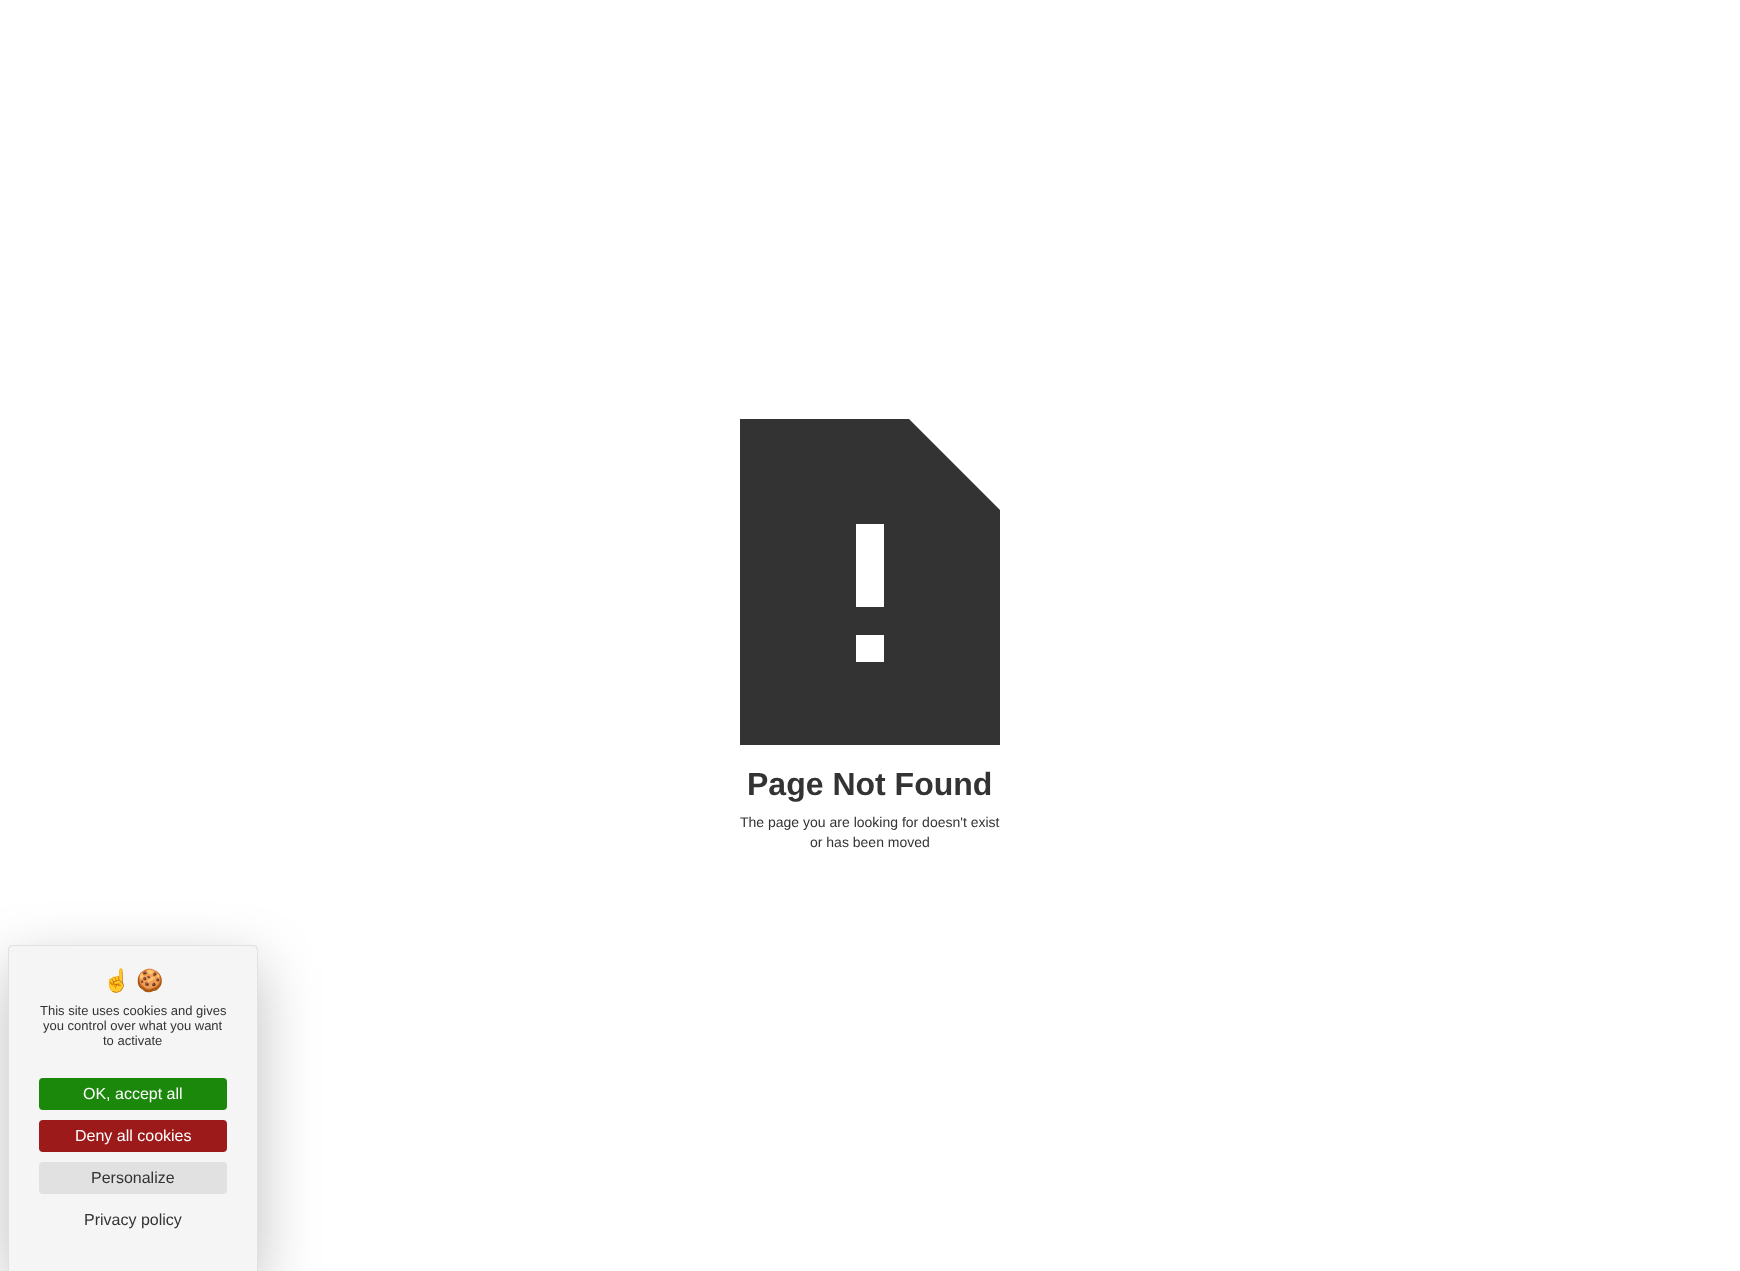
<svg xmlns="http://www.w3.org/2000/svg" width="1740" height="1271">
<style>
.a{font:bold 32px Liberation Sans;fill:#333}
.b{font:14px Liberation Sans;fill:#333}
.c{font:22px Noto Color Emoji;fill:#333}
.d{font:13px Liberation Sans;fill:#333}
.e{font:16px Liberation Sans;fill:#fff}
.f{font:16px Liberation Sans;fill:#333}
</style>
<rect width="100%" height="100%" fill="#fff"/>
<path fill="#333" fill-rule="evenodd" d="M740 419h169l91 91v235h-260zm116 105h28v83h-28zm0 111h28v27h-28z"/>
<rect fill="#00000040" filter="blur(30px)" x="8" y="965" width="250" height="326" rx="5"/>
<path fill="#f5f5f5" d="M13 945h240c3 0 5 2 5 5v321h-250v-321c0-3 2-5 5-5z"/>
<path fill="#00000014" fill-rule="evenodd" d="M13 945h240c3 0 5 2 5 5v321h-250v-321c0-3 2-5 5-5zm0 1h240c2 0 4 2 4 4v321h-248v-321c0-2 2-4 4-4z"/>
<rect fill="#1b870b" x="39" y="1078" width="188" height="32" rx="4"/>
<rect fill="#9c1a1a" x="39" y="1120" width="188" height="32" rx="4"/>
<rect fill="#e1e1e1" x="39" y="1162" width="188" height="32" rx="4"/>
<text class="a" x="747" y="795">Page Not Found</text>
<text class="b" x="740" y="827">The page you are looking for doesn't exist</text>
<text class="b" x="810" y="847">or has been moved</text>
<text class="c" x="103" y="988">☝️</text>
<text class="c" x="136" y="988">🍪</text>
<text class="d" x="40" y="1015">This site uses cookies and gives</text>
<text class="d" x="43" y="1030">you control over what you want</text>
<text class="d" x="103" y="1045">to activate</text>
<text class="e" x="83" y="1099">OK, accept all</text>
<text class="e" x="75" y="1141">Deny all cookies</text>
<text class="f" x="91" y="1183">Personalize</text>
<text class="f" x="84" y="1225">Privacy policy</text>
</svg>
